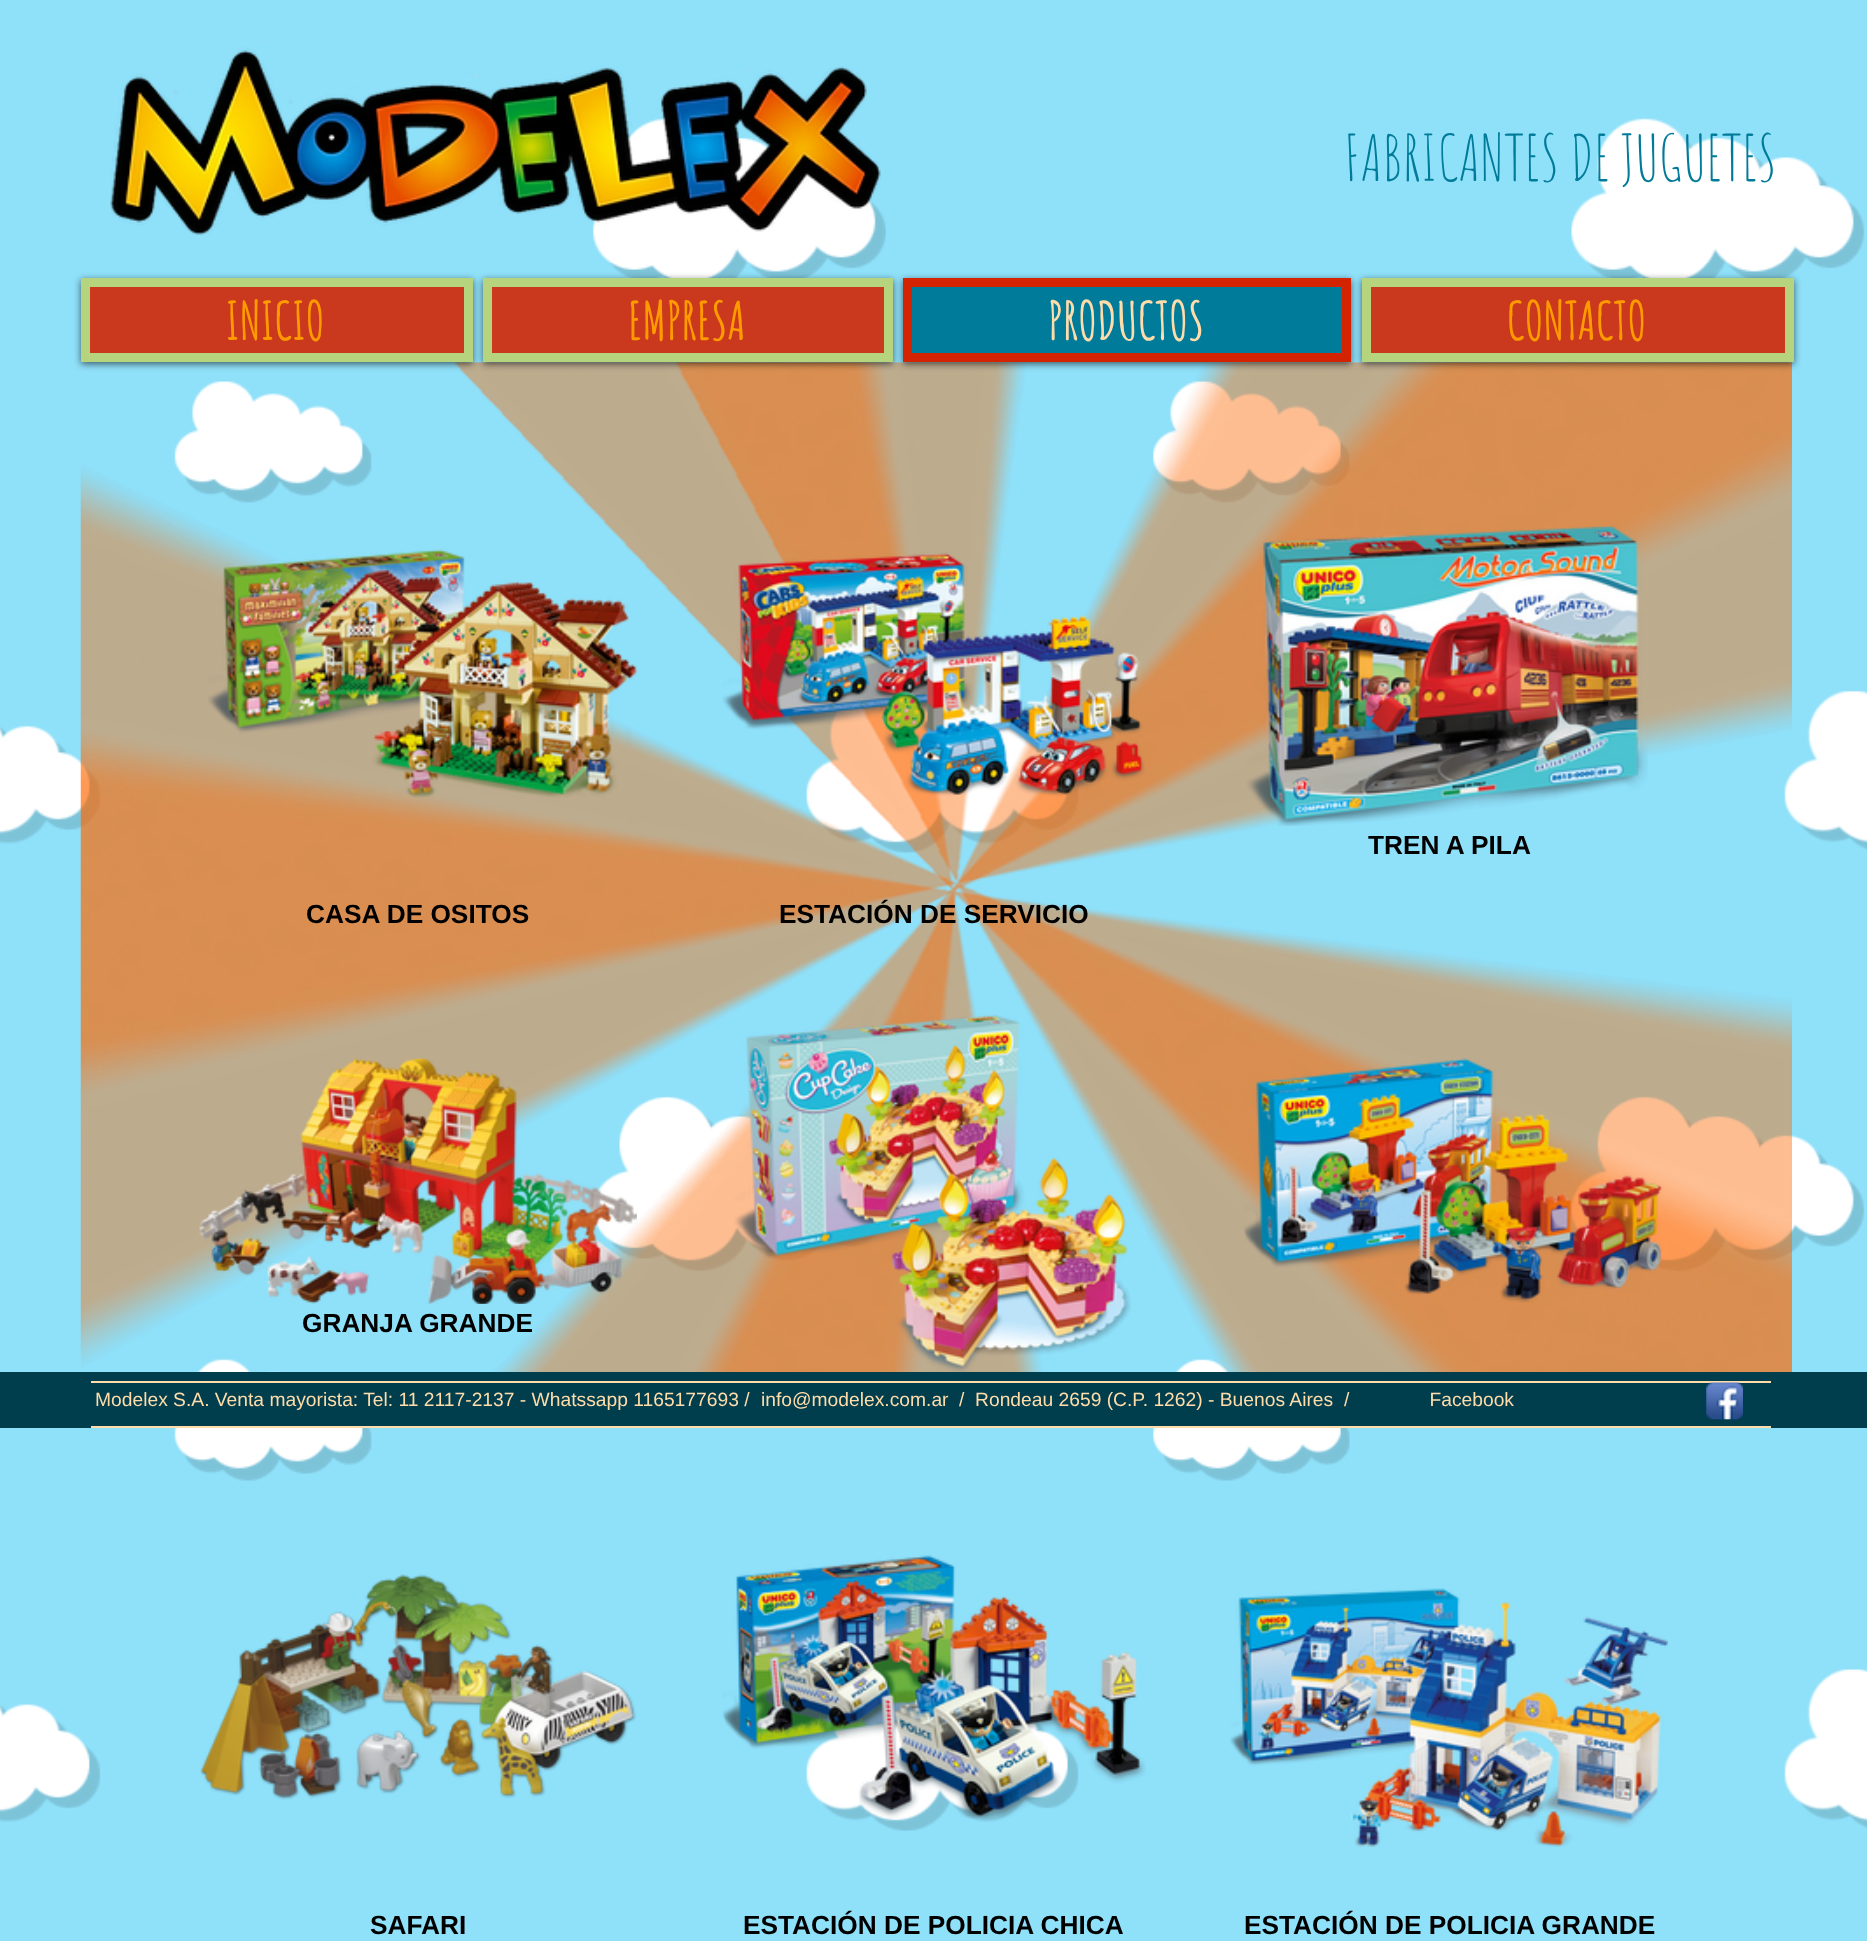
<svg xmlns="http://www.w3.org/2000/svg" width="1867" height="1941">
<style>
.a{font:63px Amatic SC;fill:#007b9a}
.b{font:bold 52.5px Amatic SC;fill:#ff9a00}
.c{font:bold 52.5px Amatic SC;fill:#fda}
.d{font:19.25px Liberation Sans;fill:#fda}
.e{font:bold 26.25px Liberation Sans;fill:#000}
</style>
<rect width="100%" height="100%" fill="#8fe0f9"/>
<image href="1.png" x="0" y="118" width="1867" height="1713"/>
<image href="2.png" x="110" y="40" width="771" height="195"/>
<image href="4.png" x="80" y="362" width="1712" height="1010"/>
<path fill="#00000099" filter="blur(3.5px)" d="M81 280h392v84H81z"/>
<path fill="#ca391e" stroke="#b6d47e" stroke-width="9" d="M85.5 282.5h383v75H85.5z"/>
<path fill="#00000099" filter="blur(3.5px)" d="M483 280h410v84H483z"/>
<path fill="#ca391e" stroke="#b6d47e" stroke-width="9" d="M487.5 282.5h401v75H487.5z"/>
<path fill="#00000099" filter="blur(3.5px)" d="M903 280h448v84H903z"/>
<path fill="#007b9a" stroke="#d32300" stroke-width="9" d="M907.5 282.5h439v75H907.5z"/>
<path fill="#00000099" filter="blur(3.5px)" d="M1362 280h432v84H1362z"/>
<path fill="#ca391e" stroke="#b6d47e" stroke-width="9" d="M1366.5 282.5h423v75H1366.5z"/>
<path fill="#003d4d" d="M0 1372h1867v56H0z"/>
<path fill="#fda" d="M91 1381h1680v2H91z"/>
<image href="3.png" x="1706" y="1382" width="37" height="38"/>
<path fill="#fda" d="M91 1426h1680v2H91z"/>
<image href="5.png" x="1247" y="526" width="401" height="300"/>
<image href="6.png" x="208" y="549" width="429" height="249"/>
<image href="7.png" x="722" y="552" width="423" height="245"/>
<image href="8.png" x="734" y="1014" width="397" height="358"/>
<image href="9.png" x="1244" y="1058" width="418" height="245"/>
<image href="10.png" x="199" y="1058" width="438" height="246"/>
<image href="11.png" x="200" y="1574" width="436" height="226"/>
<image href="12.png" x="722" y="1555" width="424" height="264"/>
<image href="13.png" x="1230" y="1588" width="438" height="259"/>
<text class="a" x="1344" y="181">FABRICANTES DE JUGUETES</text>
<text class="b" x="226" y="340">INICIO</text>
<text class="b" x="628" y="340">EMPRESA</text>
<text class="c" x="1048" y="340">PRODUCTOS</text>
<text class="b" x="1507" y="340">CONTACTO</text>
<text class="d" x="95" y="1406">Modelex S.A. Venta mayorista: Tel: 11 2117-2137 - Whatssapp 1165177693 /</text>
<text class="d" x="761" y="1406">info@modelex.com.ar</text>
<text class="d" xml:space="preserve" x="959" y="1406">/  Rondeau 2659 (C.P. 1262) - Buenos Aires  /               Facebook</text>
<text class="e" x="1368" y="854">TREN A PILA</text>
<text class="e" x="306" y="923">CASA DE OSITOS</text>
<text class="e" x="779" y="923">ESTACIÓN DE SERVICIO</text>
<text class="e" x="302" y="1332">GRANJA GRANDE</text>
<text class="e" x="370" y="1934">SAFARI</text>
<text class="e" x="743" y="1934">ESTACIÓN DE POLICIA CHICA</text>
<text class="e" x="1244" y="1934">ESTACIÓN DE POLICIA GRANDE</text>
</svg>
